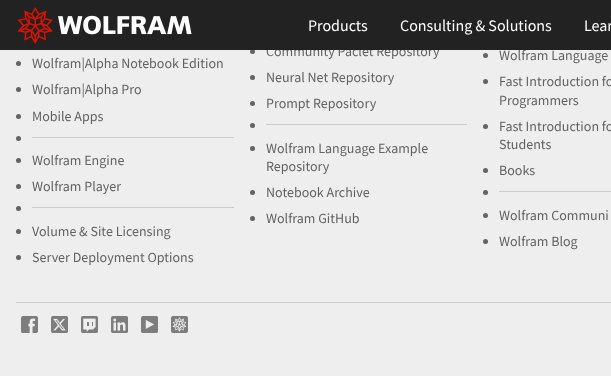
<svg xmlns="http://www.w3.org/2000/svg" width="611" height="376">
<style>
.a{font:14px Source Sans Pro;fill:#636363}
.b{font:16px Source Sans Pro;fill:#fff}
</style>
<rect width="100%" height="100%" fill="#eee"/>
<circle fill="#636363" cx="18.5" cy="63.5" r="2.5"/>
<circle fill="#636363" cx="18.5" cy="89.5" r="2.5"/>
<circle fill="#636363" cx="18.5" cy="116.5" r="2.5"/>
<circle fill="#636363" cx="18.5" cy="138.5" r="2.5"/>
<path fill="#ccc" d="M32 137h202v1H32z"/>
<circle fill="#636363" cx="18.5" cy="160.5" r="2.5"/>
<circle fill="#636363" cx="18.5" cy="186.5" r="2.5"/>
<circle fill="#636363" cx="18.5" cy="208.5" r="2.5"/>
<path fill="#ccc" d="M32 207h202v1H32z"/>
<circle fill="#636363" cx="18.5" cy="231.5" r="2.5"/>
<circle fill="#636363" cx="18.5" cy="257.5" r="2.5"/>
<circle fill="#636363" cx="252.5" cy="51.5" r="2.5"/>
<circle fill="#636363" cx="252.5" cy="77.5" r="2.5"/>
<circle fill="#636363" cx="252.5" cy="103.5" r="2.5"/>
<circle fill="#636363" cx="252.5" cy="125.5" r="2.5"/>
<path fill="#ccc" d="M266 124h201v1H266z"/>
<circle fill="#636363" cx="252.5" cy="148.5" r="2.5"/>
<circle fill="#636363" cx="252.5" cy="192.5" r="2.5"/>
<circle fill="#636363" cx="252.5" cy="218.5" r="2.5"/>
<circle fill="#636363" cx="485.5" cy="55.5" r="2.5"/>
<circle fill="#636363" cx="485.5" cy="81.5" r="2.5"/>
<circle fill="#636363" cx="485.5" cy="126.5" r="2.5"/>
<circle fill="#636363" cx="485.5" cy="170.5" r="2.5"/>
<circle fill="#636363" cx="485.5" cy="192.5" r="2.5"/>
<path fill="#ccc" d="M499 191h112v1H499z"/>
<circle fill="#636363" cx="485.5" cy="215.5" r="2.5"/>
<circle fill="#636363" cx="485.5" cy="241.5" r="2.5"/>
<path fill="#ccc" d="M16 302h595v1H16z"/>
<image href="2.png" x="21" y="316" width="17" height="17"/>
<image href="3.png" x="51" y="316" width="17" height="17"/>
<image href="4.png" x="81" y="316" width="17" height="17"/>
<image href="5.png" x="111" y="316" width="17" height="17"/>
<image href="6.png" x="141" y="316" width="17" height="17"/>
<image href="7.png" x="171" y="316" width="17" height="17"/>
<text class="a" x="32" y="68">Wolfram|Alpha Notebook Edition</text>
<text class="a" x="32" y="94">Wolfram|Alpha Pro</text>
<text class="a" x="32" y="121">Mobile Apps</text>
<text class="a" x="32" y="165">Wolfram Engine</text>
<text class="a" x="32" y="191">Wolfram Player</text>
<text class="a" x="32" y="236">Volume &amp; Site Licensing</text>
<text class="a" x="32" y="262">Server Deployment Options</text>
<text class="a" x="266" y="56">Community Paclet Repository</text>
<text class="a" x="266" y="82">Neural Net Repository</text>
<text class="a" x="266" y="108">Prompt Repository</text>
<text class="a" x="266" y="153">Wolfram Language Example</text>
<text class="a" x="266" y="171">Repository</text>
<text class="a" x="266" y="197">Notebook Archive</text>
<text class="a" x="266" y="223">Wolfram GitHub</text>
<text class="a" x="499" y="60">Wolfram Language</text>
<path fill="#222" d="M0 0h611v50H0z"/>
<text class="b" x="584" y="31">Lear</text>
<text class="b" x="400" y="31">Consulting &amp; Solutions</text>
<text class="b" x="308" y="31">Products</text>
<image href="1.png" x="17" y="7" width="175" height="37"/>
<text class="a" x="499" y="86">Fast Introduction fo</text>
<text class="a" x="499" y="105">Programmers</text>
<text class="a" x="499" y="131">Fast Introduction fo</text>
<text class="a" x="499" y="149">Students</text>
<text class="a" x="499" y="175">Books</text>
<text class="a" x="499" y="220">Wolfram Communi</text>
<text class="a" x="499" y="246">Wolfram Blog</text>
</svg>
